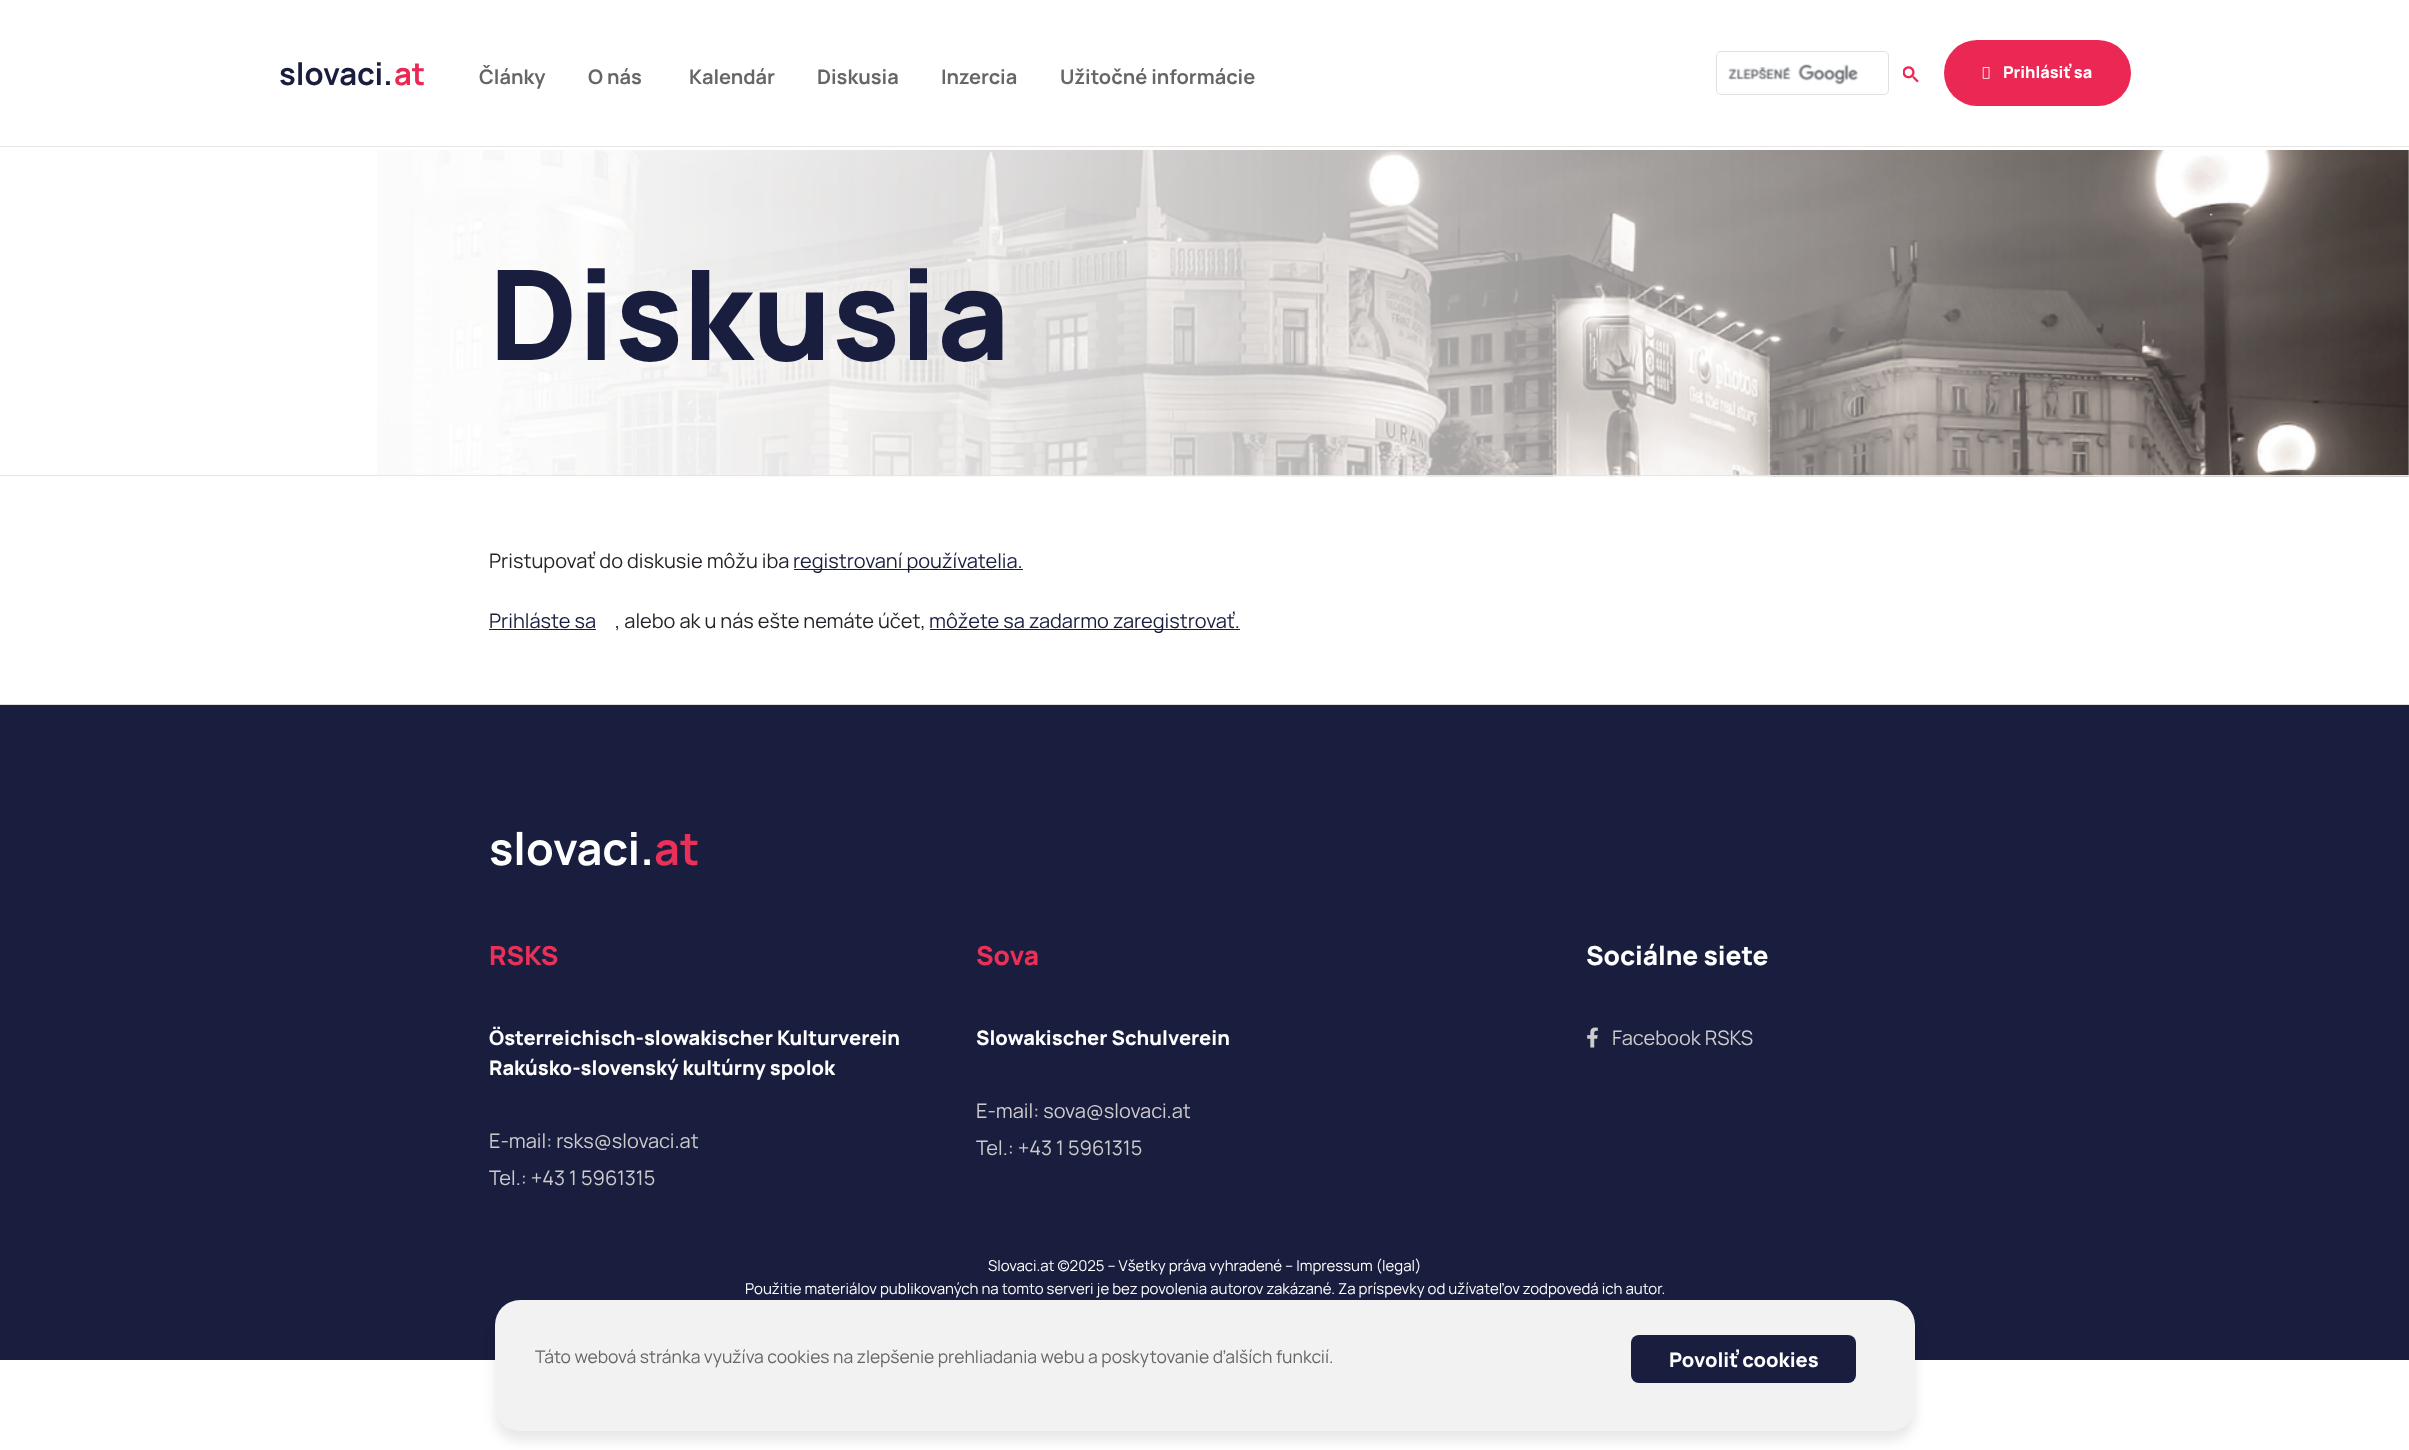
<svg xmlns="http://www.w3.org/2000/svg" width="2409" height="1450">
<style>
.a{font:bold 31px Manrope;fill:#191d3e}
.b{font:bold 31px Manrope;fill:#ea2853}
.c{font:bold 20px Manrope;fill:#666}
.d{font:800 16.25px Manrope;fill:#fff}
.e{font:800 125px Manrope;fill:#191d3e}
.f{font:20px Manrope;fill:#212529}
.g{font:20px Manrope;fill:#191d3e}
.h{font:bold 45px Manrope;fill:#fff}
.i{font:bold 45px Manrope;fill:#ea2f58}
.j{font:800 26.25px Manrope;fill:#ea2f58}
.k{font:800 20px Manrope;fill:#fff}
.l{font:20px Manrope;fill:#ccc}
.m{font:800 26.25px Manrope;fill:#fff}
.n{font:15px Manrope;fill:#fff}
.o{font:17.5px Manrope;fill:#666}
</style>
<rect width="100%" height="100%" fill="#fff"/>
<path fill="#e6e6e6" d="M0 146h2409v1H0z"/>
<rect fill="none" stroke="#dfe1e5" x="1716.5" y="51.5" width="172" height="43" rx="4.5"/>
<image href="1.png" x="1728" y="64" width="130" height="21"/>
<image href="2.png" x="1903" y="66" width="16" height="17"/>
<rect fill="#ea2853" x="1944" y="40" width="187" height="66" rx="33"/>
<image href="3.png" x="1982" y="67" width="8" height="12"/>
<image href="4.png" x="377" y="150" width="2032" height="327"/>
<path fill="#e6e6e6" d="M0 475h2409v1H0z"/>
<path fill="#ddd" d="M0 704h2409v1H0z"/>
<path fill="#191d3e" d="M794 569h229v1H794z"/>
<path fill="#191d3e" d="M489 629h107v1H489z"/>
<path fill="#191d3e" d="M930 629h310v1H930z"/>
<path fill="#191d3e" d="M0 705h2409v655H0z"/>
<image href="5.png" x="1587" y="1027" width="11" height="21"/>
<rect fill="#00000017" filter="blur(6px)" x="495" y="1310" width="1420" height="131" rx="25"/>
<rect fill="#f2f2f2" x="495" y="1300" width="1420" height="131" rx="25"/>
<rect fill="#191d3e" x="1631" y="1335" width="225" height="48" rx="8"/>
<text class="a" x="279" y="85">slovaci.</text>
<text class="b" x="394" y="85">at</text>
<text class="c" x="479" y="84">Články</text>
<text class="c" x="588" y="84">O nás</text>
<text class="c" x="689" y="84">Kalendár</text>
<text class="c" x="817" y="84">Diskusia</text>
<text class="c" x="941" y="84">Inzercia</text>
<text class="c" x="1060" y="84">Užitočné informácie</text>
<text class="d" x="2003" y="78">Prihlásiť sa</text>
<text class="e" x="489" y="360">Diskusia</text>
<text class="f" x="489" y="568">Pristupovať do diskusie môžu iba</text>
<text class="g" x="793" y="568">registrovaní používatelia.</text>
<text class="g" x="489" y="628">Prihláste sa</text>
<text class="f" x="615" y="628">, alebo ak u nás ešte nemáte účet,</text>
<text class="g" x="929" y="628">môžete sa zadarmo zaregistrovať.</text>
<text class="h" x="489" y="865">slovaci.</text>
<text class="i" x="654" y="865">at</text>
<text class="j" x="489" y="965">RSKS</text>
<text class="k" x="489" y="1045">Österreichisch-slowakischer Kulturverein</text>
<text class="k" x="489" y="1075">Rakúsko-slovenský kultúrny spolok</text>
<text class="l" x="489" y="1148">E-mail: rsks@slovaci.at</text>
<text class="l" x="489" y="1185">Tel.: +43 1 5961315</text>
<text class="j" x="976" y="965">Sova</text>
<text class="k" x="976" y="1045">Slowakischer Schulverein</text>
<text class="l" x="976" y="1118">E-mail: sova@slovaci.at</text>
<text class="l" x="976" y="1155">Tel.: +43 1 5961315</text>
<text class="m" x="1586" y="965">Sociálne siete</text>
<text class="l" x="1612" y="1045">Facebook RSKS</text>
<text class="n" x="988" y="1271">Slovaci.at ©2025 – Všetky práva vyhradené – Impressum (legal)</text>
<text class="n" x="745" y="1294">Použitie materiálov publikovaných na tomto serveri je bez povolenia autorov zakázané. Za príspevky od užívateľov zodpovedá ich autor.</text>
<text class="o" x="535" y="1363">Táto webová stránka využíva cookies na zlepšenie prehliadania webu a poskytovanie ďalších funkcií.</text>
<text class="k" x="1669" y="1367">Povoliť cookies</text>
</svg>
